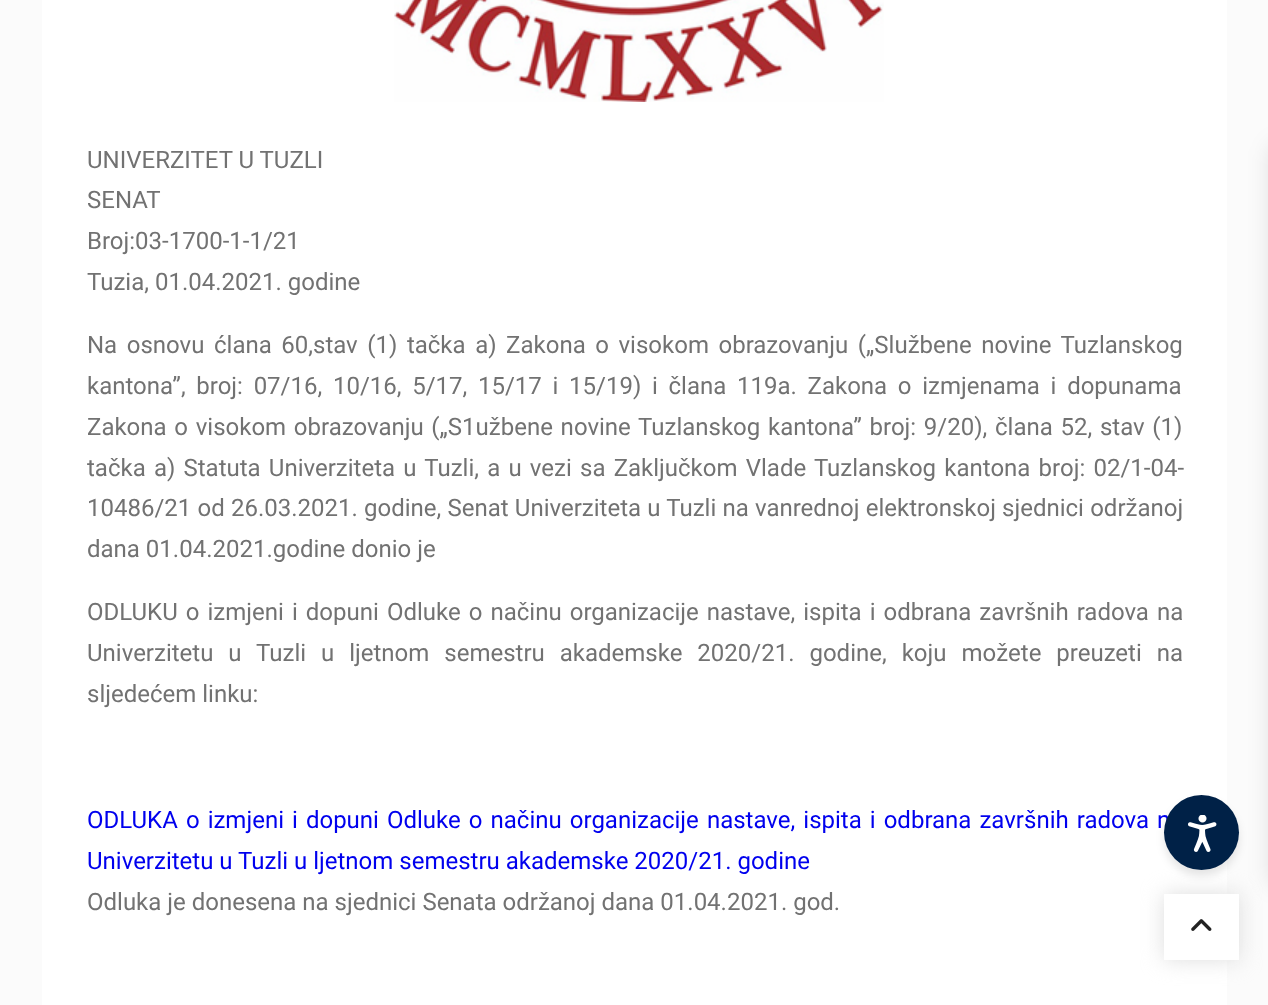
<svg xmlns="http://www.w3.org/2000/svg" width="1268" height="1005">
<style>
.a{font:24px Roboto;fill:#727272}
.b{font:24px Roboto;fill:#00e}
</style>
<rect width="100%" height="100%" fill="#fbfbfb"/>
<path fill="#fff" d="M42 0h1185v1005H42z"/>
<image href="1.png" x="394" y="0" width="490" height="102"/>
<path fill="#ddd" filter="blur(10.5px)" d="M1164 894h75v66H1164z"/>
<path fill="#fff" d="M1164 894h75v66H1164z"/>
<rect fill="#0000001a" filter="blur(11px)" x="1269" y="143" width="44" height="744" rx="12"/>
<rect fill="#0000001a" filter="blur(4.5px)" x="1164" y="801" width="75" height="75" rx="37.5"/>
<image href="3.png" x="1191" y="919" width="21" height="12"/>
<text class="a" x="87" y="168">UNIVERZITET U TUZLI</text>
<text class="a" x="87" y="208">SENAT</text>
<text class="a" x="87" y="249">Broj:03-1700-1-1/21</text>
<text class="a" x="87" y="290">Tuzia, 01.04.2021. godine</text>
<text class="a" x="87" y="353" word-spacing="3.6">Na osnovu ćlana 60,stav (1) tačka a) Zakona o visokom obrazovanju („Službene novine Tuzlanskog</text>
<text class="a" x="87" y="394" word-spacing="4.75">kantona”, broj: 07/16, 10/16, 5/17, 15/17 i 15/19) i člana 119a. Zakona o izmjenama i dopunama</text>
<text class="a" x="87" y="435" word-spacing="1.75">Zakona o visokom obrazovanju („S1užbene novine Tuzlanskog kantona” broj: 9/20), člana 52, stav (1)</text>
<text class="a" x="87" y="476" word-spacing="2.25">tačka a) Statuta Univerziteta u Tuzli, a u vezi sa Zaključkom Vlade Tuzlanskog kantona broj: 02/1-04-</text>
<text class="a" x="87" y="516" word-spacing="0.25">10486/21 od 26.03.2021. godine, Senat Univerziteta u Tuzli na vanrednoj elektronskoj sjednici održanoj</text>
<text class="a" x="87" y="557">dana 01.04.2021.godine donio je</text>
<text class="a" x="87" y="620" word-spacing="2.1">ODLUKU o izmjeni i dopuni Odluke o načinu organizacije nastave, ispita i odbrana završnih radova na</text>
<text class="a" x="87" y="661" word-spacing="9">Univerzitetu u Tuzli u ljetnom semestru akademske 2020/21. godine, koju možete preuzeti na</text>
<text class="a" x="87" y="702">sljedećem linku:</text>
<text class="b" x="87" y="828" word-spacing="2.1">ODLUKA o izmjeni i dopuni Odluke o načinu organizacije nastave, ispita i odbrana završnih radova n</text>
<text class="b" x="87" y="869">Univerzitetu u Tuzli u ljetnom semestru akademske 2020/21. godine</text>
<text class="a" x="87" y="910">Odluka je donesena na sjednici Senata održanoj dana 01.04.2021. god.</text>
<circle fill="#002147" cx="1201.5" cy="832.5" r="37.5"/>
<image href="2.png" x="1188" y="815" width="29" height="37"/>
</svg>
